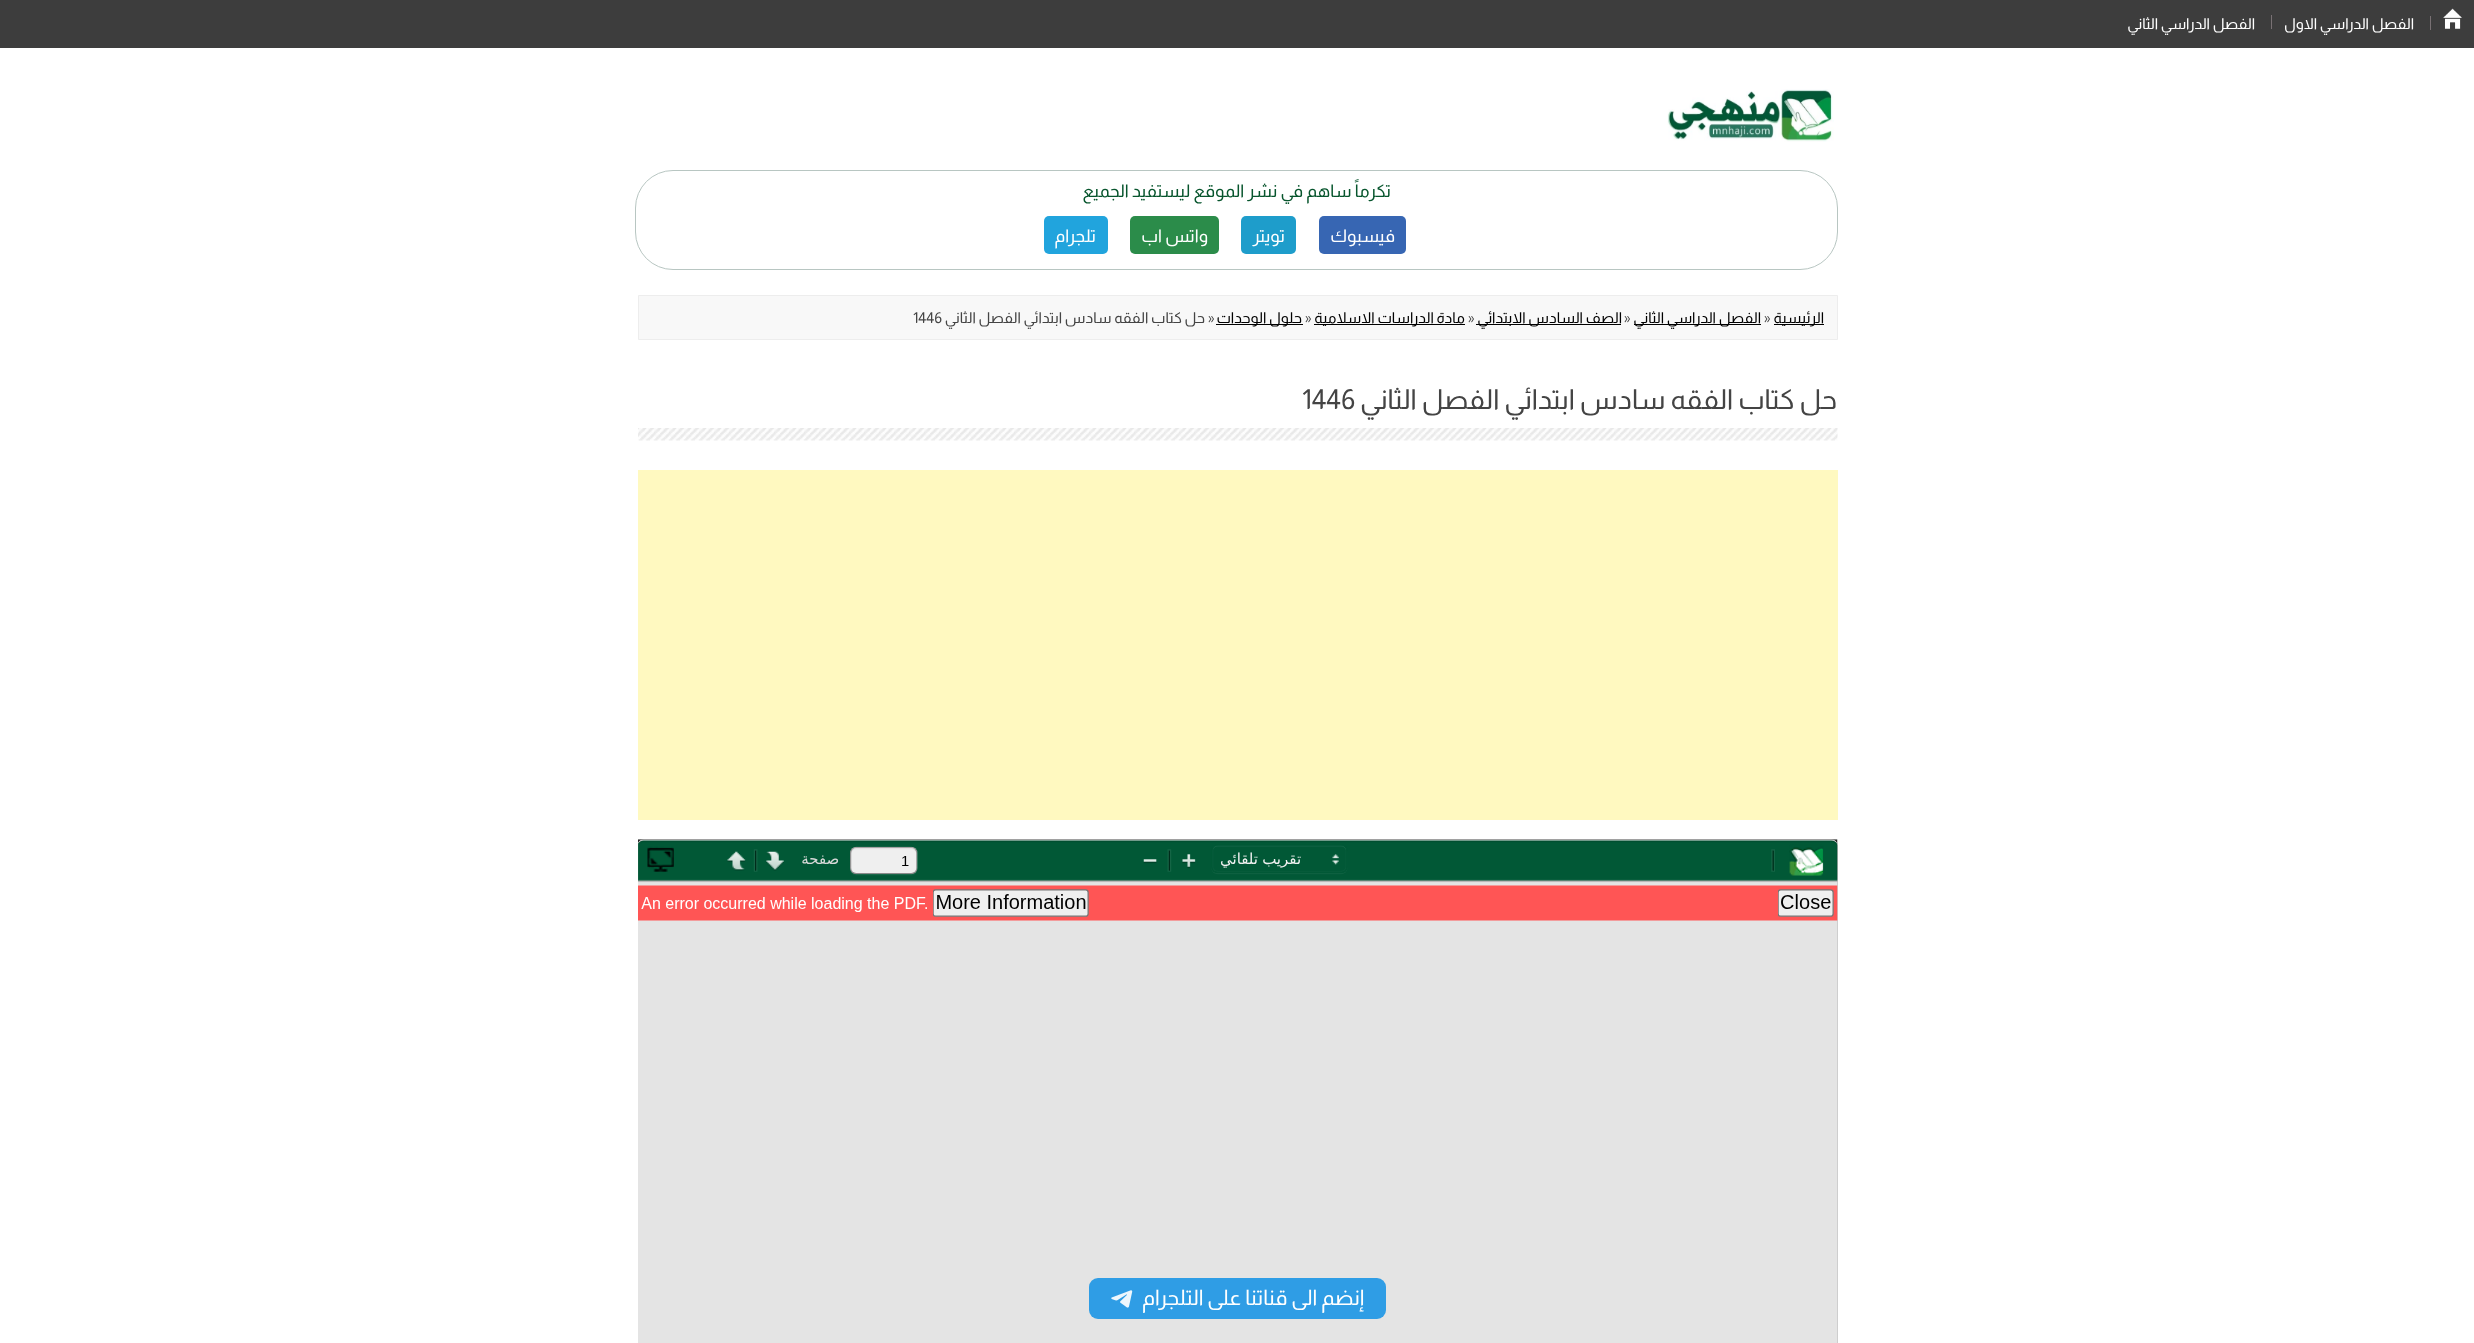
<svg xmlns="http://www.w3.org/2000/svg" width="2474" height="1343">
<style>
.a{font:15px Almarai;direction:rtl;fill:#fff}
.b{font:17.5px Almarai;direction:rtl;fill:#07552d}
.c{font:17.5px Almarai;direction:rtl;fill:#fff}
.d{font:15px Almarai;direction:rtl;fill:#000}
.e{font:15px Almarai;fill:#444}
.f{font:15px Almarai;direction:rtl;fill:#444}
.g{font:27.5px Almarai;direction:rtl;fill:#444}
.h{font:27.5px Almarai;fill:#444}
.i{font:21.25px Almarai;direction:rtl;fill:#fff}
</style>
<rect width="100%" height="100%" fill="#fff"/>
<path fill="#3d3d3d" d="M0 0h2474v48H0z"/>
<image href="1.png" x="2443" y="8" width="19" height="21"/>
<path fill="#797174" d="M2430 16h1v14H2430z"/>
<path fill="#797174" d="M2271 15h1v14H2271z"/>
<image href="2.png" x="1667" y="89" width="167" height="53"/>
<rect fill="none" stroke="#b8c6c2" x="635.5" y="170.5" width="1202" height="99" rx="37.5"/>
<rect fill="#3766b3" x="1319" y="216" width="87" height="38" rx="5"/>
<rect fill="#1e9dcb" x="1241" y="216" width="55" height="38" rx="5"/>
<rect fill="#2b8c4a" x="1130" y="216" width="89" height="38" rx="5"/>
<rect fill="#21a4dd" x="1044" y="216" width="64" height="38" rx="5"/>
<path fill="#f8f8f8" stroke="#ededed" d="M638.5 295.5h1199v44H638.5z"/>
<path fill="#000" d="M1774 324h50v1H1774z"/>
<path fill="#000" d="M1634 324h127v1H1634z"/>
<path fill="#000" d="M1476 324h145v1H1476z"/>
<path fill="#000" d="M1314 324h151v1H1314z"/>
<path fill="#000" d="M1216 324h87v1H1216z"/>
<image href="3.png" x="638" y="428" width="1200" height="13"/>
<path fill="#fff9c0" d="M638 470h1200v350H638z"/>
<image href="4.png" x="638" y="839" width="1200" height="504"/>
<rect fill="#2f9de5" x="1089" y="1278" width="297" height="41" rx="9"/>
<image href="5.png" x="1111" y="1290" width="22" height="18"/>
<text class="a" x="2414" y="29">الفصل الدراسي الاول</text>
<text class="a" x="2255" y="29">الفصل الدراسي الثاني</text>
<text class="b" x="1391" y="197">تكرماً ساهم في نشر الموقع ليستفيد الجميع</text>
<text class="c" x="1395" y="242">فيسبوك</text>
<text class="c" x="1285" y="242">تويتر</text>
<text class="c" x="1208" y="242">واتس اب</text>
<text class="c" x="1096" y="242">تلجرام</text>
<text class="d" x="1824" y="323">الرئيسية</text>
<text class="e" x="1764" y="323">»</text>
<text class="d" x="1761" y="323">الفصل الدراسي الثاني</text>
<text class="e" x="1624" y="323">»</text>
<text class="d" x="1622" y="323">الصف السادس الابتدائي</text>
<text class="e" x="1468" y="323">»</text>
<text class="d" x="1465" y="323">مادة الدراسات الاسلامية</text>
<text class="e" x="1305" y="323">»</text>
<text class="d" x="1302" y="323">حلول الوحدات</text>
<text class="e" x="1208" y="323">»</text>
<text class="f" x="1205" y="323">حل كتاب الفقه سادس ابتدائي الفصل الثاني</text>
<text class="e" x="913" y="323">1446</text>
<text class="g" x="1837" y="409">حل كتاب الفقه سادس ابتدائي الفصل الثاني</text>
<text class="h" x="1302" y="409">1446</text>
<text class="i" x="1364" y="1305">إنضم الى قناتنا على التلجرام</text>
</svg>
